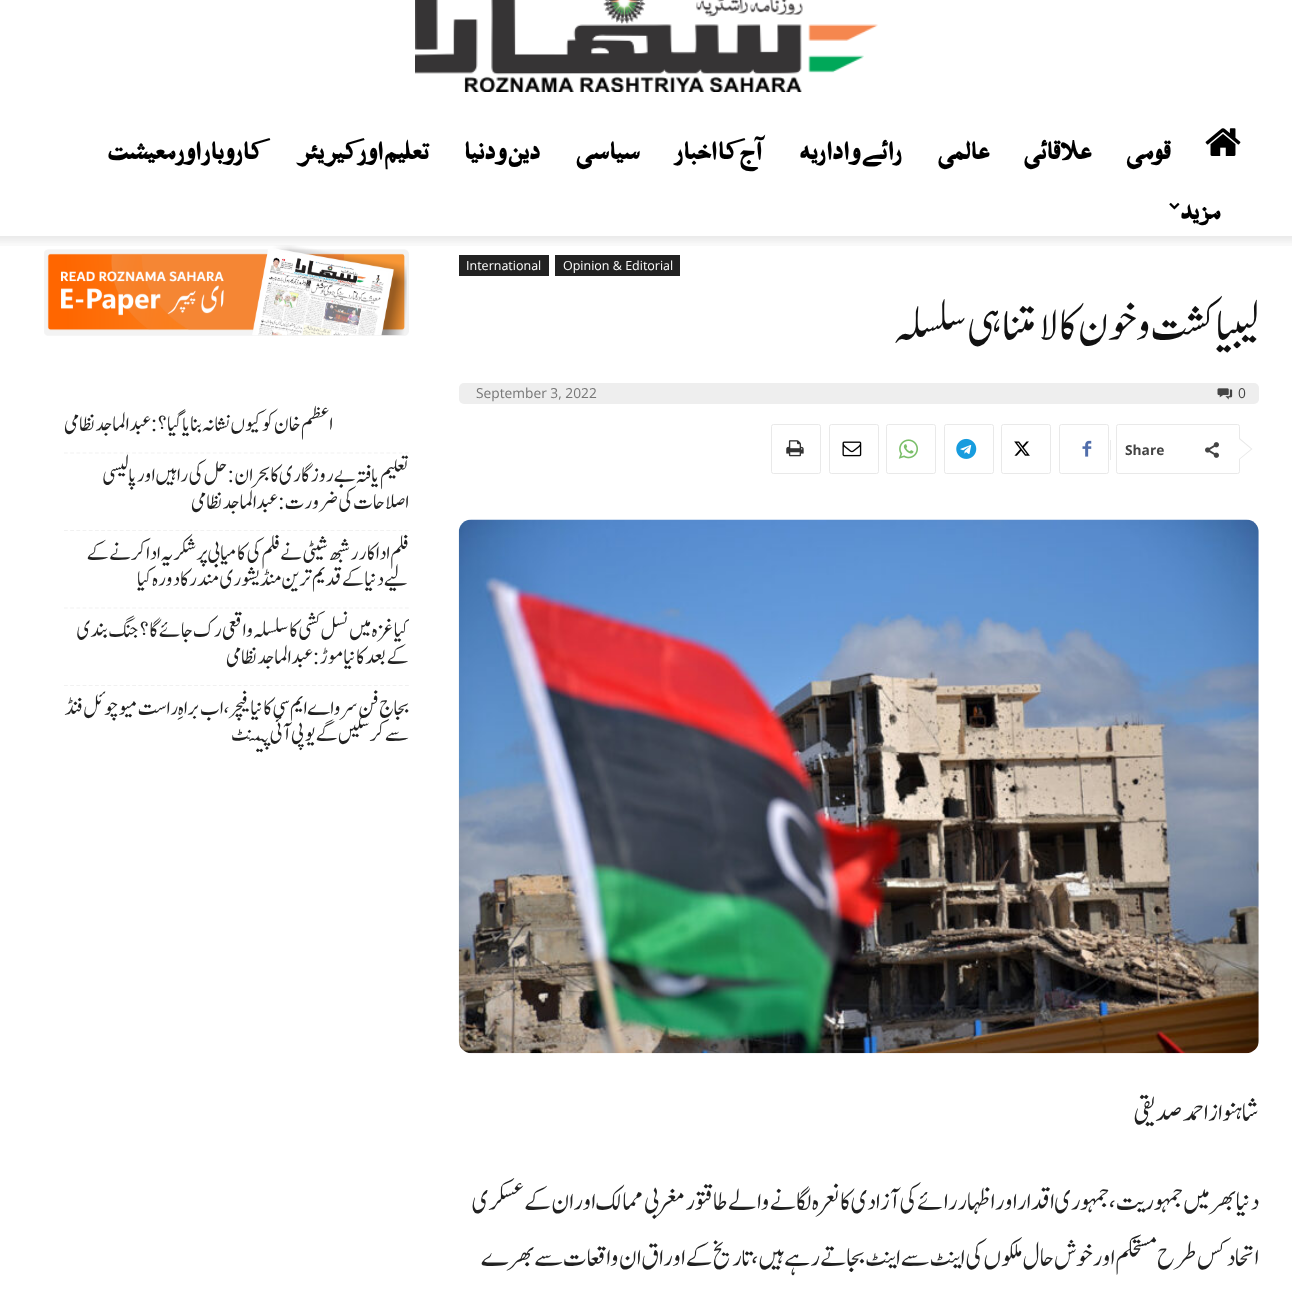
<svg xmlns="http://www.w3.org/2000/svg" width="1292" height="1307">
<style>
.a{font:bold 38.75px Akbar;direction:rtl;fill:#000}
.b{font:12.5px Open Sans;fill:#fff}
.c{font:51.25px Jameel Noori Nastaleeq;direction:rtl;fill:#111}
.d{font:13.75px Open Sans;fill:#444}
.e{font:13.75px Open Sans;fill:#767676}
.f{font:bold 13.75px Open Sans;fill:#444}
.g{font:30px Jameel Noori Nastaleeq;direction:rtl;fill:#222}
.h{font:25px Jameel Noori Nastaleeq;direction:rtl;fill:#222}
</style>
<defs>
<clipPath id="clip1"><path d="M34 390h375v390H34z"/></clipPath>
</defs>
<rect width="100%" height="100%" fill="#fff"/>
<image href="1.png" x="415" y="0" width="463" height="92"/>
<image href="2.png" x="1205" y="128" width="36" height="28"/>
<image href="3.png" x="1169" y="202" width="11" height="8"/>
<image href="14.png" x="44" y="245" width="365" height="91"/>
<image href="4.png" x="0" y="236" width="1292" height="10"/>
<path fill="#222" d="M555 255h125v21H555z"/>
<path fill="#222" d="M459 255h90v21H459z"/>
<rect fill="#eee" x="459" y="383" width="800" height="21" rx="5"/>
<image href="5.png" x="1217" y="388" width="16" height="12"/>
<rect fill="none" stroke="#e9e9e9" x="1116.5" y="424.5" width="123" height="49" rx="2"/>
<path fill="#e9e9e9" d="M1239 460v-22.5l13.5 11.5z"/>
<path fill="#fff" d="M1239 459v-20l12 10z"/>
<image href="6.png" x="1205" y="442" width="14" height="16"/>
<path fill="#ebebeb" d="M1110 440h1v20H1110z"/>
<rect fill="none" stroke="#e9e9e9" x="1059.5" y="424.5" width="49" height="49" rx="2"/>
<image href="7.png" x="1082" y="440" width="10" height="17"/>
<rect fill="none" stroke="#e9e9e9" x="1001.5" y="424.5" width="49" height="49" rx="2"/>
<image href="8.png" x="1014" y="441" width="16" height="15"/>
<rect fill="none" stroke="#e9e9e9" x="944.5" y="424.5" width="49" height="49" rx="2"/>
<image href="9.png" x="956" y="438" width="21" height="21"/>
<rect fill="none" stroke="#e9e9e9" x="886.5" y="424.5" width="49" height="49" rx="2"/>
<image href="10.png" x="898" y="439" width="20" height="20"/>
<rect fill="none" stroke="#e9e9e9" x="829.5" y="424.5" width="49" height="49" rx="2"/>
<image href="11.png" x="842" y="441" width="20" height="16"/>
<rect fill="none" stroke="#e9e9e9" x="771.5" y="424.5" width="49" height="49" rx="2"/>
<image href="12.png" x="786" y="440" width="18" height="17"/>
<image href="13.png" x="458" y="519" width="801" height="535"/>
<path fill="none" stroke="#f1f1f1" stroke-width="1.2" stroke-dasharray="3.75 2.45" d="M64 453h345"/>
<path fill="none" stroke="#f1f1f1" stroke-width="1.2" stroke-dasharray="3.75 2.45" d="M64 530.5h345"/>
<path fill="none" stroke="#f1f1f1" stroke-width="1.2" stroke-dasharray="3.75 2.45" d="M64 608h345"/>
<path fill="none" stroke="#f1f1f1" stroke-width="1.2" stroke-dasharray="3.75 2.45" d="M64 685.5h345"/>
<text class="a" x="1170" y="159">قومی</text>
<text class="a" x="1091" y="159">علاقائی</text>
<text class="a" x="989" y="159">عالمی</text>
<text class="a" x="902" y="159">رائے و</text>
<text class="a" x="849" y="159">اداریہ</text>
<text class="a" x="764" y="159">آج کا اخبار</text>
<text class="a" x="640" y="159">سیاسی</text>
<text class="a" x="540" y="159">دین و دنیا</text>
<text class="a" x="429" y="159">تعلیم اور کیریئر</text>
<text class="a" x="263" y="159">کاروبار اور معیشت</text>
<text class="a" x="1220" y="219">مزید</text>
<text class="b" x="563" y="270">Opinion &amp; Editorial</text>
<text class="b" x="466" y="270">International</text>
<text class="c" x="1259" y="340">لیبیا کشت و خون کا لامتناہی سلسلہ</text>
<text class="d" x="1238" y="398">0</text>
<text class="e" x="476" y="398">September 3, 2022</text>
<text class="f" x="1125" y="455">Share</text>
<text class="g" x="1259" y="1121">شاہنوازاحمد صدیقی</text>
<text class="g" x="1259" y="1210">دنیا بھر میں جمہوریت، جمہوری اقدار اور اظہاررائے کی آزادی کا نعرہ لگانے والے طاقتور مغربی ممالک اور ان کے عسکری</text>
<text class="g" x="1259" y="1266">اتحاد کس طرح مستحکم اور خوش حال ملکوں کی اینٹ سے اینٹ بجاتے رہے ہیں، تاریخ کے اوراق ان واقعات سے بھرے</text>
<text class="h" x="333" y="431">اعظم خان کو کیوں نشانہ بنایا گیا؟: عبدالماجد نظامی</text>
<text class="h" x="409" y="482">تعلیم یافتہ بے روزگاری کا بحران: حل کی راہیں اور پالیسی</text>
<text class="h" x="409" y="509">اصلاحات کی ضرورت: عبدالماجد نظامی</text>
<text class="h" x="409" y="560">فلم اداکار رشبھ شیٹی نے فلم کی کامیابی پر شکریہ ادا کرنے کے</text>
<text class="h" x="409" y="586">لیے دنیا کے قدیم ترین منڈیشوری مندر کا دورہ کیا</text>
<g clip-path="url(#clip1)">
<text class="h" x="409" y="637">کیا غزہ میں نسل کشی کا سلسلہ واقعی رک جائے گا؟ جنگ بندی</text>
</g>
<text class="h" x="409" y="664">کے بعد کا نیا موڑ: عبدالماجد نظامی</text>
<text class="h" x="409" y="715">بجاج فن سرو اے ایم سی کا نیا فیچر، اب براہِ راست میوچوئل فنڈ</text>
<text class="h" x="409" y="741">سے کر سکیں گے یو پی آئی پیمنٹ</text>
</svg>
